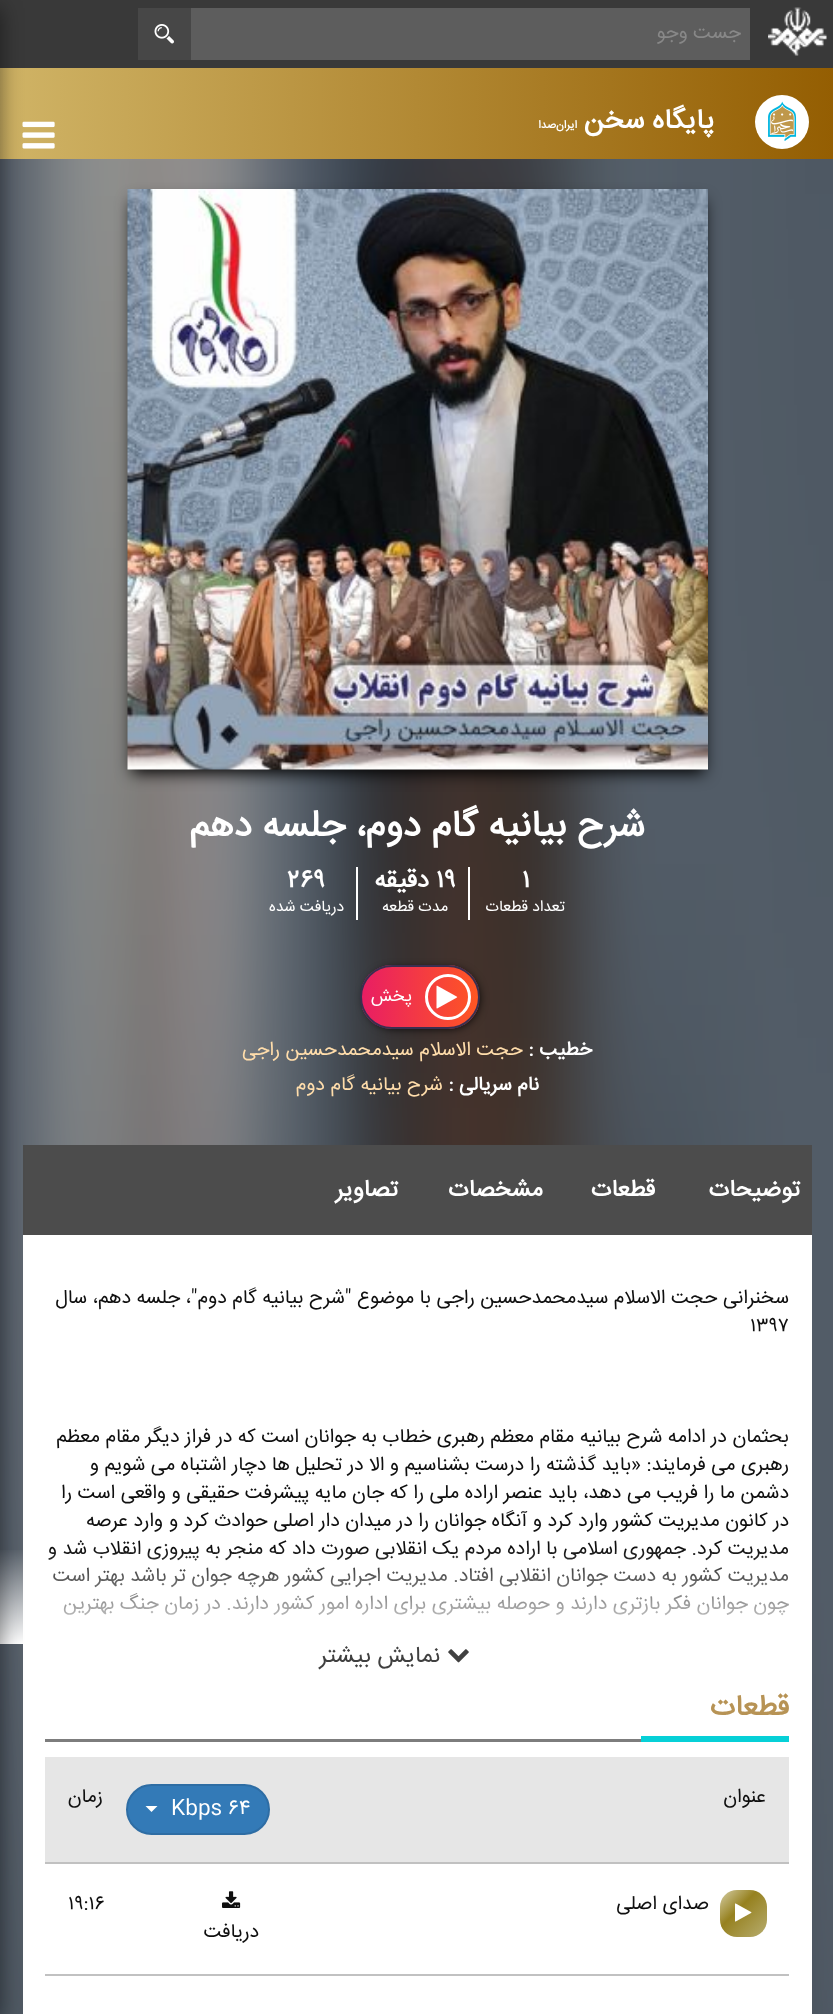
<svg xmlns="http://www.w3.org/2000/svg" width="833" height="2014">
<style>
.a{font:19.5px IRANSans;direction:rtl;fill:#888}
.b{font:bold 27.5px IRANSans;direction:rtl;fill:#fff}
.c{font:bold 11px IRANSans;direction:rtl;fill:#fff}
.d{font:bold 37px IRANSans;direction:rtl;fill:#fff}
.e{font:bold 25px IRANSans;fill:#fff}
.f{font:15.5px IRANSans;direction:rtl;fill:#fff}
.g{font:bold 25px IRANSans;direction:rtl;fill:#fff}
.h{font:17.5px IRANSans;direction:rtl;fill:#fff}
.i{font:bold 19.5px IRANSans;direction:rtl;fill:#fff}
.j{font:19.5px IRANSans;direction:rtl;fill:#ffddab}
.k{font:bold 23.5px IRANSans;letter-spacing:1.5px;direction:rtl;fill:#fff}
.l{font:19.5px IRANSans;direction:rtl;fill:#0f0f0f}
.m{font:19.5px IRANSans;fill:#0f0f0f}
.n{font:23px IRANSans;direction:rtl;fill:#404040}
.o{font:bold 29px IRANSans;direction:rtl;fill:#b79355}
.p{font:21px IRANSans;fill:#fff}
</style>
<defs>
<linearGradient id="g1" gradientUnits="userSpaceOnUse" x1="0" y1="113" x2="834" y2="113"><stop offset="0" stop-color="#d0b466"/><stop offset="1" stop-color="#945e02"/></linearGradient>
<clipPath id="clip1"><rect x="360" y="965" width="120" height="64" rx="32"/></clipPath>
<linearGradient id="g2" gradientUnits="userSpaceOnUse" x1="362" y1="997" x2="479" y2="997"><stop offset="0.01" stop-color="#e91e63"/><stop offset="1" stop-color="#ff5722"/></linearGradient>
<linearGradient id="g3" gradientUnits="userSpaceOnUse" x1="720" y1="1890" x2="767" y2="1937"><stop offset="0" stop-color="#d5cea6"/><stop offset="0.4" stop-color="#96811f"/><stop offset="1" stop-color="#b7ad70"/></linearGradient>
<linearGradient id="g4" gradientUnits="userSpaceOnUse" x1="395" y1="1548" x2="395" y2="1644"><stop offset="0" stop-color="#fff" stop-opacity="0"/><stop offset="1" stop-color="#fff"/></linearGradient>
</defs>
<rect width="100%" height="100%" fill="#fff"/>
<path fill="#393939" d="M0 0h833v68H0z"/>
<image href="1.png" x="768" y="7" width="59" height="49"/>
<path fill="#5d5d5d" d="M191 8h559v52H191z"/>
<path fill="#474747" d="M138 8h53v52H138z"/>
<image href="2.png" x="154" y="24" width="20" height="20"/>
<path fill="url(#g1)" d="M0 68h833v91H0z"/>
<circle fill="#fff" cx="782" cy="122" r="27"/>
<image href="3.png" x="768" y="101" width="29" height="40"/>
<image href="4.png" x="22" y="121" width="33" height="28"/>
<image href="10.png" x="0" y="159" width="833" height="1855"/>
<path fill="#000" filter="blur(8px)" d="M132 201h572v572H132z"/>
<image href="5.png" x="127" y="189" width="581" height="581"/>
<path fill="#fff" d="M468 867h2v53H468z"/>
<path fill="#fff" d="M356 867h2v53H356z"/>
<rect fill="#000" filter="blur(5px)" x="365" y="969" width="114" height="59" rx="29.5"/>
<g clip-path="url(#clip1)">
<path fill="url(#g2)" d="M362 965h117v64H362z"/>
</g>
<rect fill="none" stroke="#3a2f50" stroke-width="2" x="361" y="966" width="118" height="62" rx="31"/>
<circle fill="none" stroke="#fff" stroke-width="3" cx="448" cy="997" r="21.5"/>
<image href="6.png" x="436" y="985" width="22" height="24"/>
<path fill="#4c4c4c" d="M23 1145h789v90H23z"/>
<path fill="#fff" d="M23 1235h789v779H23z"/>
<image href="7.png" x="448" y="1649" width="21" height="14"/>
<path fill="#7d7d7d" d="M45 1739h596v3H45z"/>
<path fill="#06d0d7" d="M641 1736h148v6H641z"/>
<path fill="#e6e6e6" d="M45 1757h744v105H45z"/>
<path fill="#c1c1c1" d="M45 1862h744v2H45z"/>
<rect fill="#337ab7" stroke="#2e6da4" stroke-width="2" x="127" y="1785" width="142" height="49" rx="24.5"/>
<path fill="#fff" d="M145.5 1806h12l-6 6z"/>
<path fill="#c1c1c1" d="M45 1974h744v2H45z"/>
<rect fill="url(#g3)" x="720" y="1890" width="47" height="47" rx="17"/>
<image href="8.png" x="735" y="1903" width="17" height="19"/>
<image href="9.png" x="222" y="1891" width="19" height="17"/>
<text class="a" x="741" y="38">جست وجو</text>
<text class="b" x="714" y="128">پایگاه سخن</text>
<text class="c" x="577" y="128">ایران‌صدا</text>
<text class="d" x="645" y="836">شرح بیانیه گام دوم، جلسه دهم</text>
<text class="e" x="522" y="887">۱</text>
<text class="f" x="565" y="911">تعداد قطعات</text>
<text class="e" x="436" y="887">۱۹</text>
<text class="g" x="429" y="887">دقیقه</text>
<text class="f" x="448" y="911">مدت قطعه</text>
<text class="e" x="287" y="887">۲۶۹</text>
<text class="f" x="344" y="911">دریافت شده</text>
<text class="h" x="412" y="1001">پخش</text>
<text class="i" x="592" y="1055">خطیب :</text>
<text class="j" x="523" y="1055">حجت الاسلام سیدمحمدحسین راجی</text>
<text class="i" x="539" y="1090">نام سریالی :</text>
<text class="j" x="443" y="1090">شرح بیانیه گام دوم</text>
<text class="k" x="800" y="1196">توضیحات</text>
<text class="k" x="655" y="1196">قطعات</text>
<text class="k" x="543" y="1196">مشخصات</text>
<text class="k" x="398" y="1196">تصاویر</text>
<text class="l" x="789" y="1303">سخنرانی حجت الاسلام سیدمحمدحسین راجی با موضوع "شرح بیانیه گام دوم"، جلسه دهم، سال</text>
<text class="m" x="750" y="1331">۱۳۹۷</text>
<text class="l" x="789" y="1442">بحثمان در ادامه شرح بیانیه مقام معظم رهبری خطاب به جوانان است که در فراز دیگر مقام معظم</text>
<text class="l" x="789" y="1470">رهبری می‌ فرمایند: «باید گذشته را درست بشناسیم و الا در تحلیل ها دچار اشتباه می ‌شویم و</text>
<text class="l" x="789" y="1498">دشمن ما را فریب می دهد، باید عنصر اراده ملی را که جان مایه پیشرفت حقیقی و واقعی است را</text>
<text class="l" x="789" y="1526">در کانون مدیریت کشور وارد کرد و آنگاه جوانان را در میدان دار اصلی حوادث کرد و</text>
<text class="l" x="163" y="1526">وارد عرصه</text>
<text class="l" x="789" y="1554">مدیریت کرد. جمهوری اسلامی با اراده مردم یک انقلابی صورت داد که منجر به پیروزی انقلاب شد و</text>
<text class="l" x="789" y="1581">مدیریت کشور به دست جوانان انقلابی افتاد. مدیریت اجرایی کشور هرچه جوان تر باشد بهتر است</text>
<text class="l" x="789" y="1609">چون</text>
<text class="l" x="748" y="1609">جوانان فکر بازتری دارند و حوصله بیشتری برای اداره امور کشور دارند. در زمان جنگ بهترین</text>
<path fill="url(#g4)" d="M0 1550h789v94H0z"/>
<text class="n" x="440" y="1662">نمایش بیشتر</text>
<text class="o" x="789" y="1715">قطعات</text>
<text class="l" x="766" y="1802">عنوان</text>
<text class="p" x="171" y="1814">Kbps ۶۴</text>
<text class="l" x="103" y="1802">زمان</text>
<text class="l" x="709" y="1909">صدای اصلی</text>
<text class="m" x="68" y="1909">۱۹:۱۶</text>
<text class="l" x="259" y="1937">دریافت</text>
<path fill="#00000080" filter="blur(11px)" d="M-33 8h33v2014H-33z"/>
</svg>
